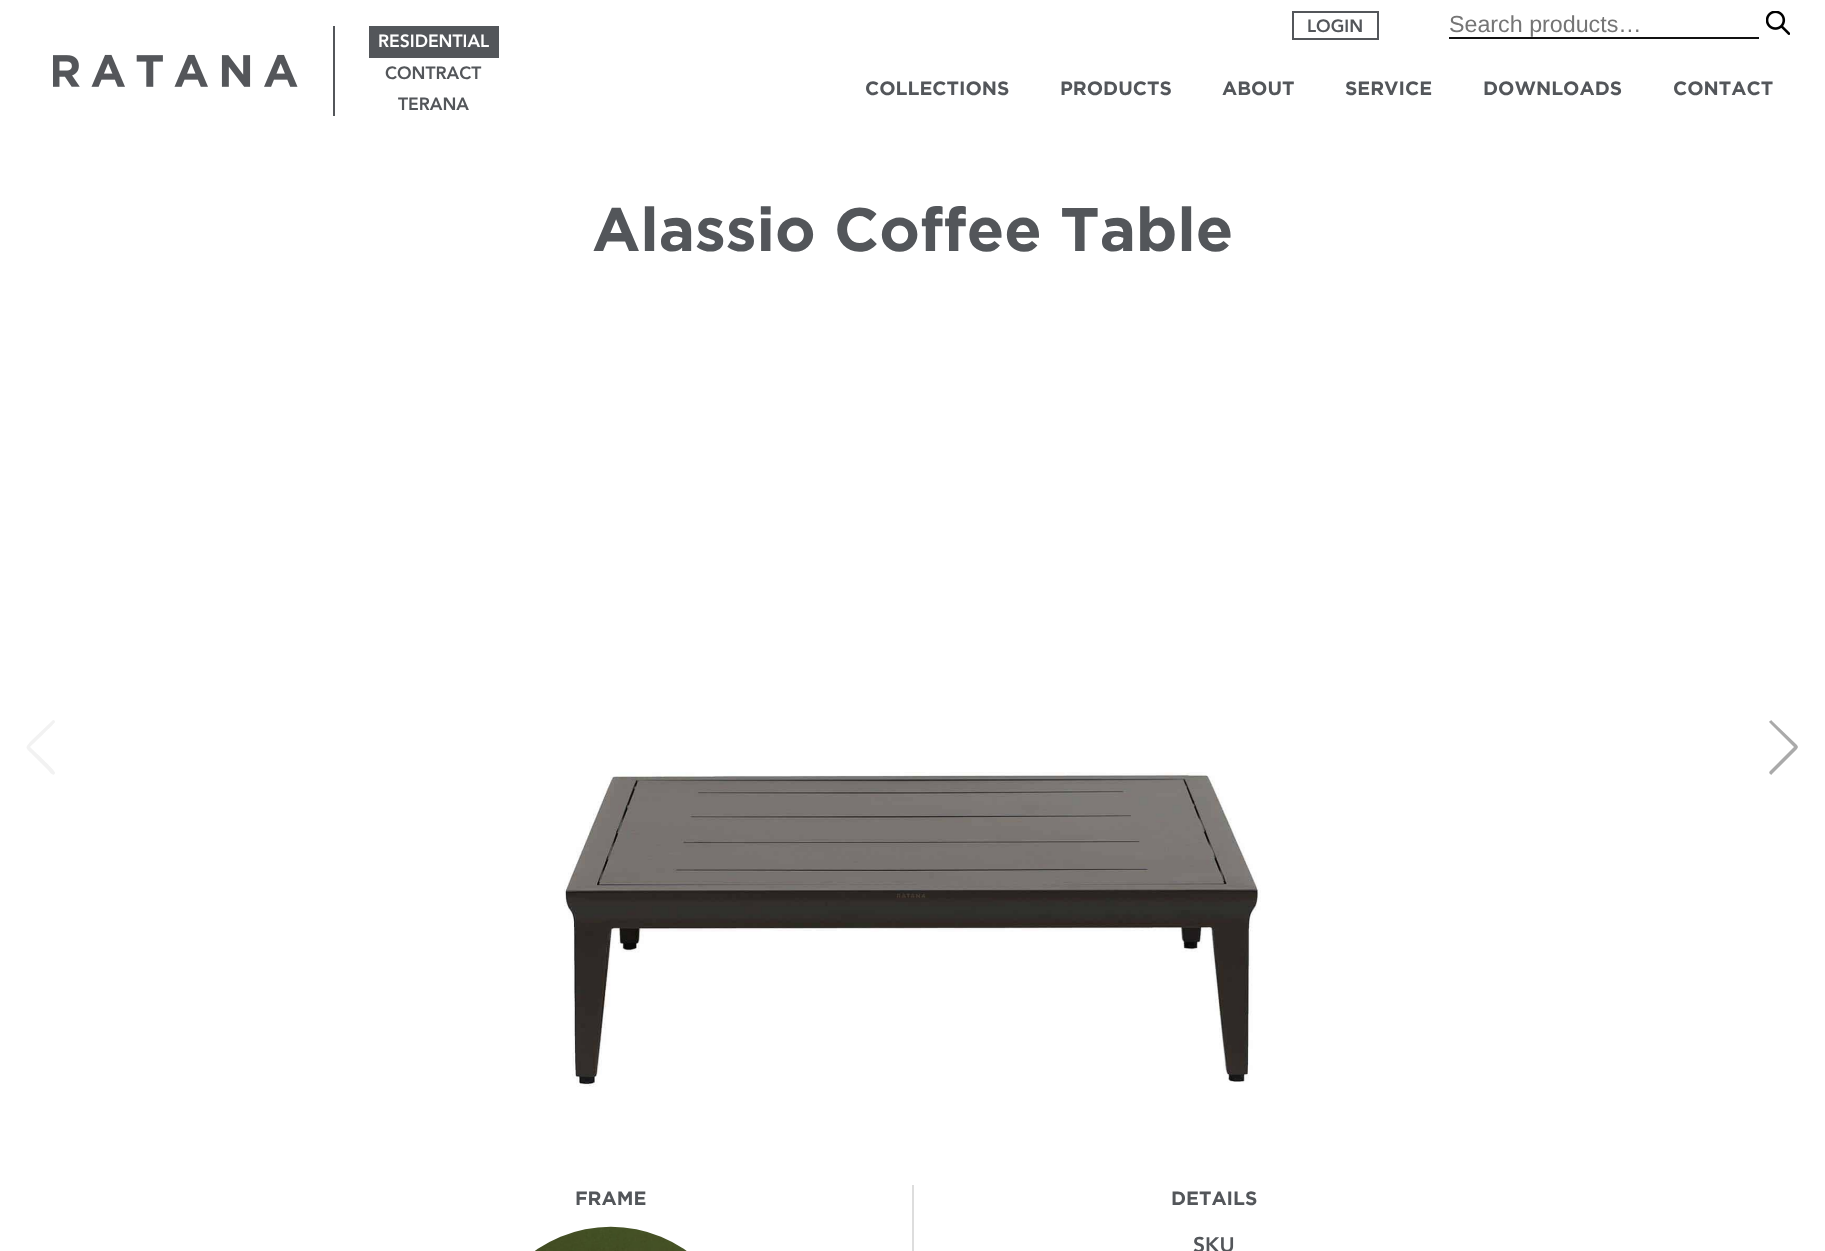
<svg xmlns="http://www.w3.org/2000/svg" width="1825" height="1251">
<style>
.a{font:900 17.5px Avenir;fill:#fff}
.b{font:900 17.5px Avenir;fill:#53565a}
.c{font:23.25px Liberation Sans;fill:#757575}
.d{font:bold 19.25px Gotham;fill:#53565a}
.e{font:bold 61.25px Gotham;fill:#53565a}
.f{font:900 21px Avenir;fill:#53565a}
</style>
<rect width="100%" height="100%" fill="#fff"/>
<path fill="#53565a" d="M333 26h2v90H333z"/>
<image href="1.png" x="53" y="54" width="245" height="33"/>
<path fill="#53565a" d="M369 26h130v32H369z"/>
<path fill="none" stroke="#53565a" stroke-width="2" d="M1293 12h85v27H1293z"/>
<path fill="#111" d="M1449 37h310v2H1449z"/>
<image href="2.png" x="1766" y="11" width="24" height="24"/>
<path fill="#f2f2f2" d="M52 721c1-2 3-1 3 1c0 1-22 22-25 25c3 3 26 24 25 26c-1 4-5 0-7-3l-17-17c-6-6-6-5 0-12z"/>
<path fill="#aaa" d="M1770 774c-1-1-1-2 0-3l24-24l-24-24c-1-1-1-2 0-2c1-1 2-1 2 0l25 24l1 2l-1 2l-25 25c0 1-1 1-2 0z"/>
<image href="3.png" x="564" y="772" width="697" height="315"/>
<path fill="#ddd" d="M912 1185h2v66H912z"/>
<image href="4.png" x="535" y="1226" width="152" height="25"/>
<text class="a" x="378" y="47">RESIDENTIAL</text>
<text class="b" x="385" y="79">CONTRACT</text>
<text class="b" x="398" y="110">TERANA</text>
<text class="b" x="1307" y="32">LOGIN</text>
<text class="c" x="1449" y="32">Search products…</text>
<text class="d" x="865" y="95">COLLECTIONS</text>
<text class="d" x="1060" y="95">PRODUCTS</text>
<text class="d" x="1222" y="95">ABOUT</text>
<text class="d" x="1345" y="95">SERVICE</text>
<text class="d" x="1483" y="95">DOWNLOADS</text>
<text class="d" x="1673" y="95">CONTACT</text>
<text class="e" x="592" y="251">Alassio Coffee Table</text>
<text class="d" x="575" y="1205">FRAME</text>
<text class="d" x="1171" y="1205">DETAILS</text>
<text class="f" x="1193" y="1252">SKU</text>
</svg>
